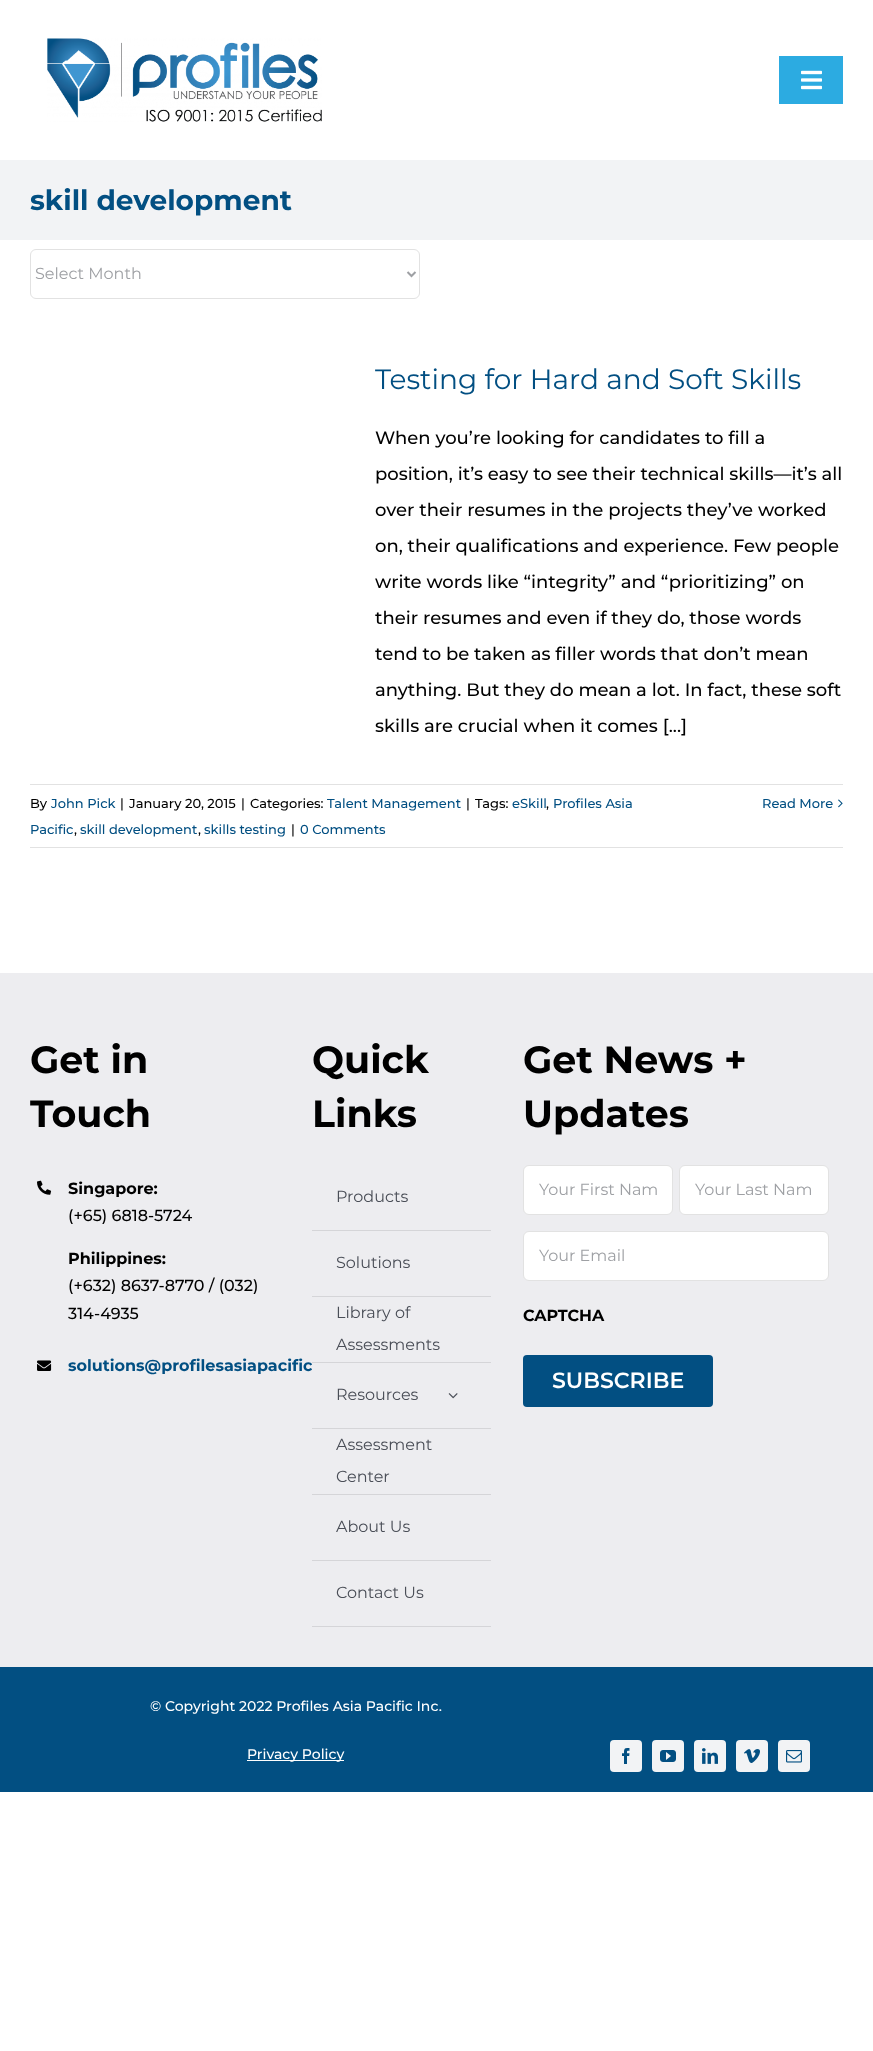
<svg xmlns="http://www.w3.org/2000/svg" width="873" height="2051">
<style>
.a{font:bold 28px Montserrat;fill:#024f82}
.b{font:16px Montserrat;fill:#9ea0a4}
.c{font:28px Montserrat;fill:#024f82}
.d{font:500 18px Montserrat;fill:#000}
.e{font:500 13px Montserrat;fill:#000}
.f{font:500 13px Montserrat;fill:#024f82}
.g{font:bold 38px Montserrat;fill:#000}
.h{font:bold 16px Montserrat;fill:#000}
.i{font:500 16px Montserrat;fill:#000}
.j{font:bold 16px Montserrat;fill:#024f82}
.k{font:16px Montserrat;fill:#4a4e57}
.l{font:600 22px Montserrat;fill:#fff}
.m{font:500 14px Montserrat;fill:#fff}
</style>
<rect width="100%" height="100%" fill="#fff"/>
<image href="1.png" x="47" y="38" width="275" height="84"/>
<path fill="#2cabe1" d="M779 56h64v48H779z"/>
<image href="2.png" x="801" y="70" width="21" height="20"/>
<path fill="#f2f3f5" d="M0 160h873v80H0z"/>
<rect fill="none" stroke="#e2e2e2" x="30.5" y="249.5" width="389" height="49" rx="5.5"/>
<path fill="none" stroke="#9ea0a4" stroke-width="2" d="M407.5 272l4 4l4-4"/>
<path fill="#e2e2e2" d="M30 784h813v1H30z"/>
<path fill="#e2e2e2" d="M30 847h813v1H30z"/>
<image href="3.png" x="838" y="799" width="5" height="9"/>
<path fill="#ededf0" d="M0 973h873v694H0z"/>
<image href="4.png" x="37" y="1180" width="15" height="15"/>
<image href="5.png" x="37" y="1360" width="15" height="11"/>
<path fill="#d5d5d8" d="M312 1230h179v1H312z"/>
<path fill="#d5d5d8" d="M312 1296h179v1H312z"/>
<path fill="#d5d5d8" d="M312 1428h179v1H312z"/>
<image href="6.png" x="448" y="1393" width="10" height="6"/>
<path fill="#d5d5d8" d="M312 1494h179v1H312z"/>
<path fill="#d5d5d8" d="M312 1560h179v1H312z"/>
<path fill="#d5d5d8" d="M312 1626h179v1H312z"/>
<rect fill="#fff" stroke="#e2e2e2" x="523.5" y="1165.5" width="149" height="49" rx="5.5"/>
<rect fill="#fff" stroke="#e2e2e2" x="679.5" y="1165.5" width="149" height="49" rx="5.5"/>
<rect fill="#fff" stroke="#e2e2e2" x="523.5" y="1231.5" width="305" height="49" rx="5.5"/>
<rect fill="#024f82" x="523" y="1355" width="190" height="52" rx="4"/>
<path fill="#024f82" d="M0 1667h873v125H0z"/>
<path fill="#fff" d="M247 1760h97v1H247z"/>
<rect fill="#f2f3f5" x="610" y="1740" width="32" height="32" rx="4"/>
<image href="7.png" x="622" y="1748" width="8" height="16"/>
<rect fill="#f2f3f5" x="652" y="1740" width="32" height="32" rx="4"/>
<image href="8.png" x="660" y="1750" width="16" height="12"/>
<rect fill="#f2f3f5" x="694" y="1740" width="32" height="32" rx="4"/>
<image href="9.png" x="702" y="1748" width="16" height="16"/>
<rect fill="#f2f3f5" x="736" y="1740" width="32" height="32" rx="4"/>
<image href="10.png" x="744" y="1749" width="16" height="14"/>
<rect fill="#f2f3f5" x="778" y="1740" width="32" height="32" rx="4"/>
<image href="11.png" x="786" y="1750" width="16" height="13"/>
<text class="a" x="30" y="210">skill development</text>
<text class="b" x="35" y="279">Select Month</text>
<text class="c" x="375" y="389">Testing for Hard and Soft Skills</text>
<text class="d" x="375" y="444">When you’re looking for candidates to fill a</text>
<text class="d" x="375" y="480">position, it’s easy to see their technical skills—it’s all</text>
<text class="d" x="375" y="516">over their resumes in the projects they’ve worked</text>
<text class="d" x="375" y="552">on, their qualifications and experience. Few people</text>
<text class="d" x="375" y="588">write words like “integrity” and “prioritizing” on</text>
<text class="d" x="375" y="624">their resumes and even if they do, those words</text>
<text class="d" x="375" y="660">tend to be taken as filler words that don’t mean</text>
<text class="d" x="375" y="696">anything. But they do mean a lot. In fact, these soft</text>
<text class="d" x="375" y="732">skills are crucial when it comes [...]</text>
<text class="e" x="30" y="808">By</text>
<text class="f" x="51" y="808">John Pick</text>
<text class="e" x="120" y="808">|</text>
<text class="e" x="129" y="808">January 20, 2015</text>
<text class="e" x="241" y="808">|</text>
<text class="e" x="250" y="808">Categories:</text>
<text class="f" x="327" y="808">Talent Management</text>
<text class="e" x="466" y="808">|</text>
<text class="e" x="475" y="808">Tags:</text>
<text class="f" x="512" y="808">eSkill</text>
<text class="e" x="546" y="808">,</text>
<text class="f" x="553" y="808">Profiles Asia</text>
<text class="f" x="30" y="834">Pacific</text>
<text class="e" x="74" y="834">,</text>
<text class="f" x="80" y="834">skill development</text>
<text class="e" x="198" y="834">,</text>
<text class="f" x="204" y="834">skills testing</text>
<text class="e" x="291" y="834">|</text>
<text class="f" x="300" y="834">0 Comments</text>
<text class="f" x="762" y="808">Read More</text>
<text class="g" x="30" y="1073">Get in</text>
<text class="g" x="30" y="1127">Touch</text>
<text class="h" x="68" y="1194">Singapore:</text>
<text class="i" x="68" y="1221">(+65) 6818-5724</text>
<text class="h" x="68" y="1264">Philippines:</text>
<text class="i" x="68" y="1291">(+632) 8637-8770 / (032)</text>
<text class="i" x="68" y="1319">314-4935</text>
<text class="j" x="68" y="1371">solutions@profilesasiapacific</text>
<text class="g" x="312" y="1073">Quick</text>
<text class="g" x="312" y="1127">Links</text>
<path fill="#ededf0" d="M312 1363h1v7H312z"/>
<text class="k" x="336" y="1202">Products</text>
<text class="k" x="336" y="1268">Solutions</text>
<path fill="#d5d5d8" d="M312 1362h179v1H312z"/>
<text class="k" x="336" y="1318">Library of</text>
<text class="k" x="336" y="1350">Assessments</text>
<text class="k" x="336" y="1400">Resources</text>
<text class="k" x="336" y="1450">Assessment</text>
<text class="k" x="336" y="1482">Center</text>
<text class="k" x="336" y="1532">About Us</text>
<text class="k" x="336" y="1598">Contact Us</text>
<text class="g" x="523" y="1073">Get News +</text>
<text class="g" x="523" y="1127">Updates</text>
<text class="b" x="539" y="1195">Your First Nam</text>
<text class="b" x="695" y="1195">Your Last Nam</text>
<text class="b" x="539" y="1261">Your Email</text>
<text class="h" x="523" y="1321">CAPTCHA</text>
<text class="l" x="552" y="1388">SUBSCRIBE</text>
<text class="m" x="150" y="1711">© Copyright 2022 Profiles Asia Pacific Inc.</text>
<text class="m" x="247" y="1759">Privacy Policy</text>
</svg>
